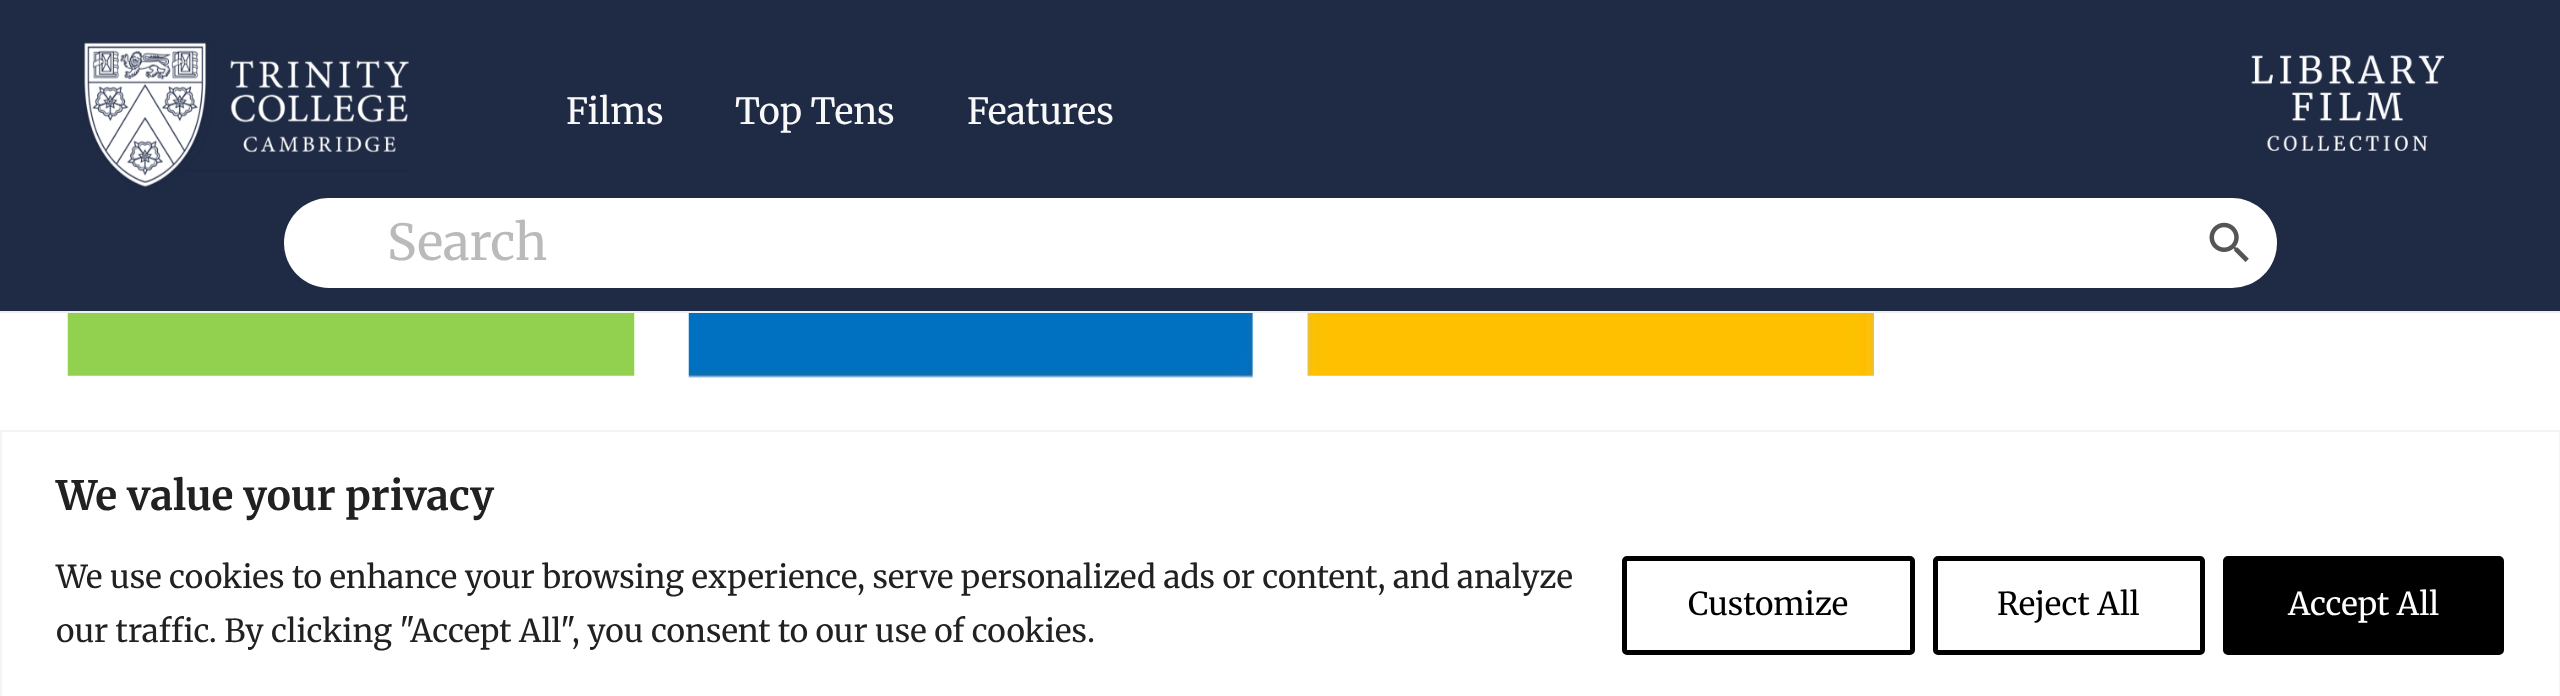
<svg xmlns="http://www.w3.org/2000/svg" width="2560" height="696">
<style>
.a{font:36px Merriweather;fill:#f9f9f9}
.b{font:49.5px Merriweather;fill:#bababa}
.c{font:bold 40.5px Merriweather;fill:#212121}
.d{font:31.5px Merriweather;fill:#212121}
.e{font:31.5px Merriweather;fill:#000}
.f{font:31.5px Merriweather;fill:#fff}
</style>
<rect width="100%" height="100%" fill="#fff"/>
<path fill="#1f2a44" d="M0 0h2560v311H0z"/>
<path fill="#eee" d="M0 311h2560v2H0z"/>
<image href="1.png" x="84" y="42" width="325" height="145"/>
<image href="2.png" x="2251" y="55" width="193" height="96"/>
<rect fill="#fff" x="284" y="198" width="1993" height="90" rx="45"/>
<image href="3.png" x="2209" y="222" width="40" height="40"/>
<image href="4.png" x="67" y="313" width="568" height="63"/>
<image href="5.png" x="688" y="313" width="566" height="65"/>
<image href="6.png" x="1307" y="313" width="568" height="63"/>
<path fill="none" stroke="#f4f4f4" stroke-width="2" d="M1 431h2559v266H1z"/>
<rect fill="none" stroke="#000" stroke-width="5" x="1624.5" y="558.5" width="288" height="94" rx="2.5"/>
<rect fill="none" stroke="#000" stroke-width="5" x="1935.5" y="558.5" width="267" height="94" rx="2.5"/>
<rect fill="#000" stroke="#000" stroke-width="5" x="2225.5" y="558.5" width="276" height="94" rx="2.5"/>
<text class="a" x="566" y="124">Films</text>
<text class="a" x="735" y="124">Top Tens</text>
<text class="a" x="967" y="124">Features</text>
<text class="b" x="387" y="260">Search</text>
<text class="c" x="56" y="510">We value your privacy</text>
<text class="d" x="56" y="588">We use cookies to enhance your browsing experience, serve personalized ads or content, and analyze</text>
<text class="d" x="56" y="642">our traffic. By clicking "Accept All", you consent to our use of cookies.</text>
<text class="e" x="1688" y="615">Customize</text>
<text class="e" x="1997" y="615">Reject All</text>
<text class="f" x="2288" y="615">Accept All</text>
</svg>
